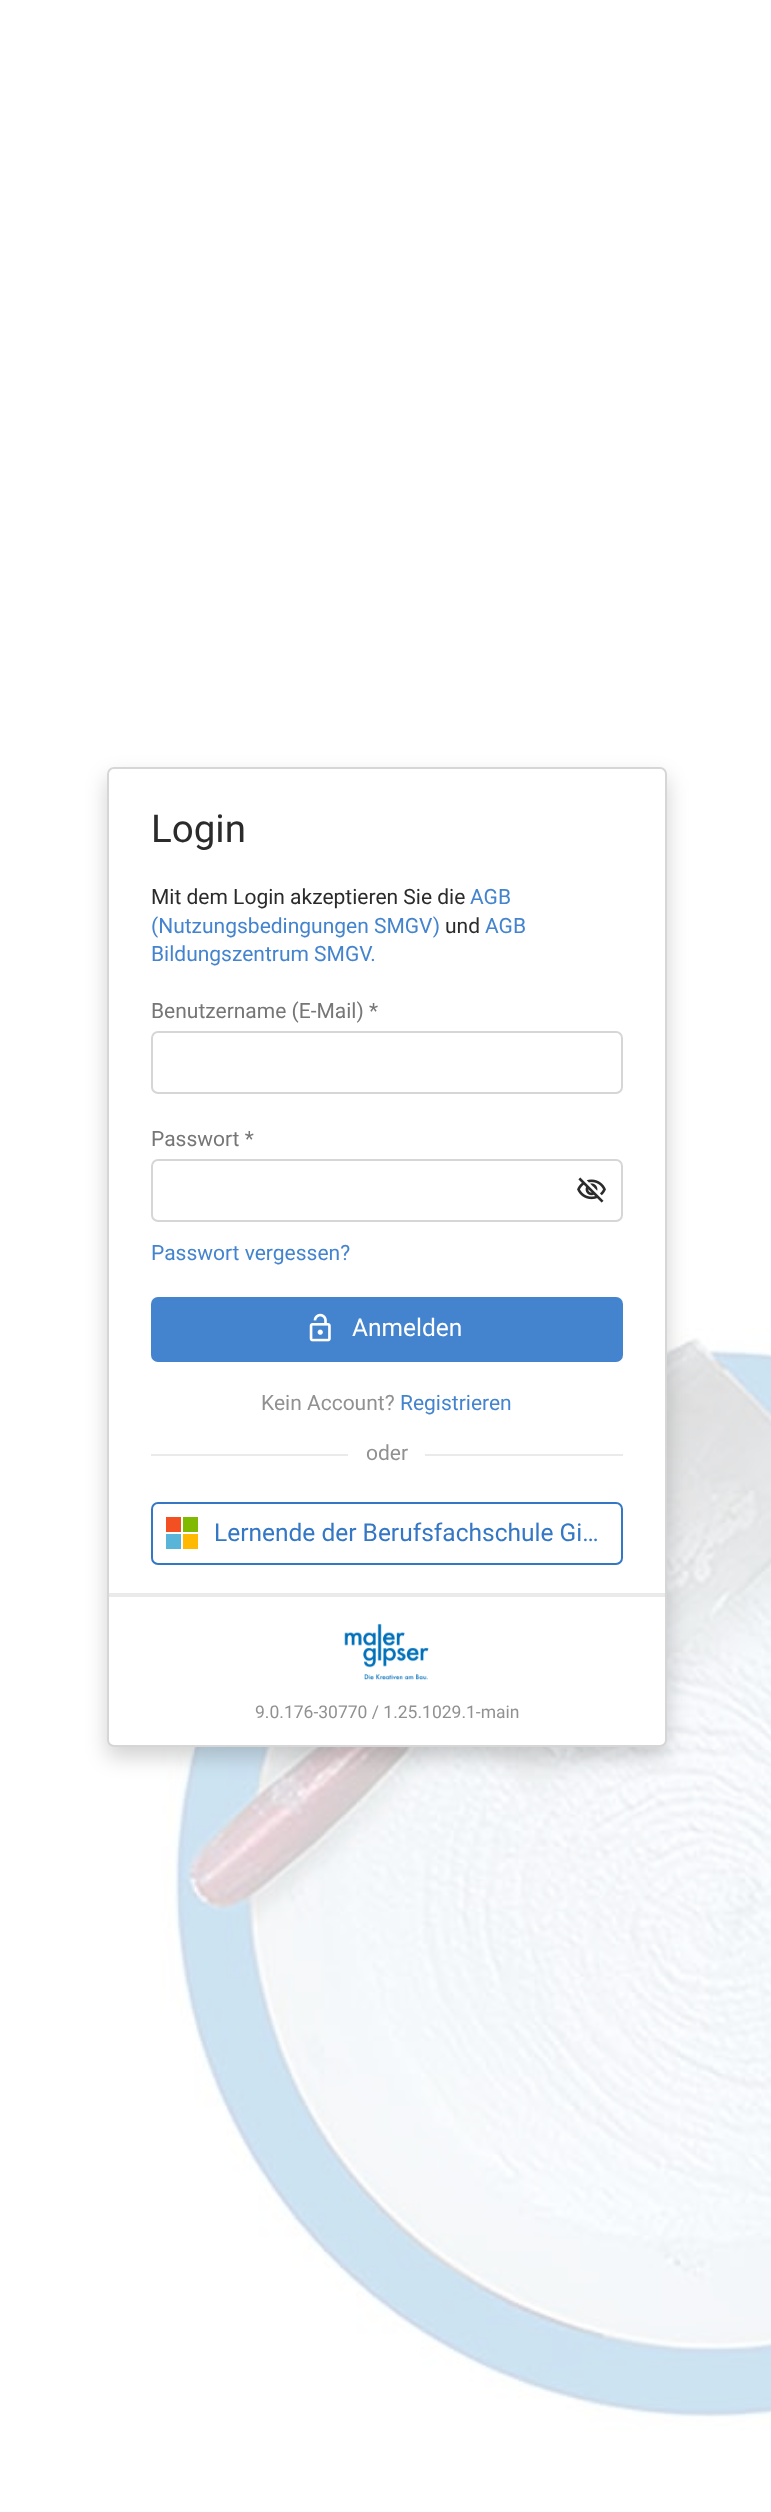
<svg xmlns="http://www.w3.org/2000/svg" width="771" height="2512">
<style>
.a{font:38.5px Roboto;fill:#2b2b2b}
.b{font:21px Roboto;fill:#2b2b2b}
.c{font:21px Roboto;fill:#4484ce}
.d{font:21px Roboto;fill:#767676}
.e{font:24.5px Roboto;fill:#fff}
.f{font:21px Roboto;fill:#919191}
.g{font:24.5px Roboto;fill:#3477c5}
.h{font:17.5px Roboto;fill:#919191}
</style>
<rect width="100%" height="100%" fill="#fff"/>
<image href="4.png" x="161" y="1327" width="610" height="1104"/>
<rect fill="#0000002e" filter="blur(10.5px)" x="107" y="777" width="560" height="980" rx="7"/>
<rect fill="#fff" stroke="#d6d6d6" stroke-width="2" x="108" y="768" width="558" height="978" rx="6"/>
<rect fill="none" stroke="#d6d6d6" stroke-width="2" x="152" y="1032" width="470" height="61" rx="6"/>
<rect fill="none" stroke="#d6d6d6" stroke-width="2" x="152" y="1160" width="470" height="61" rx="6"/>
<image href="1.png" x="577" y="1177" width="29" height="26"/>
<rect fill="#4484ce" x="151" y="1297" width="472" height="65" rx="7"/>
<image href="2.png" x="309" y="1313" width="22" height="29"/>
<path fill="#eaeaea" d="M151 1454h472v2H151z"/>
<path fill="#fff" d="M348 1454h77v2H348z"/>
<rect fill="none" stroke="#3477c5" stroke-width="2" x="152" y="1503" width="470" height="61" rx="6"/>
<path fill="#f25022" d="M166 1517h15v15H166z"/>
<path fill="#7fba00" d="M183 1517h15v15H183z"/>
<path fill="#59b4d9" d="M166 1534h15v15H166z"/>
<path fill="#ffb900" d="M183 1534h15v15H183z"/>
<path fill="#eaeaea" d="M109 1593h556v4H109z"/>
<image href="3.png" x="344" y="1623" width="85" height="57"/>
<text class="a" x="151" y="842">Login</text>
<text class="b" x="151" y="904">Mit dem Login akzeptieren Sie die</text>
<text class="c" x="470" y="904">AGB</text>
<text class="c" x="151" y="933">(Nutzungsbedingungen SMGV)</text>
<text class="b" x="445" y="933">und</text>
<text class="c" x="485" y="933">AGB</text>
<text class="c" x="151" y="961">Bildungszentrum SMGV.</text>
<text class="d" x="151" y="1018">Benutzername (E-Mail) *</text>
<text class="d" x="151" y="1146">Passwort *</text>
<text class="c" x="151" y="1260">Passwort vergessen?</text>
<text class="e" x="352" y="1336">Anmelden</text>
<text class="f" x="261" y="1410">Kein Account?</text>
<text class="c" x="400" y="1410">Registrieren</text>
<text class="f" x="366" y="1460">oder</text>
<text class="g" x="214" y="1541">Lernende der Berufsfachschule Gi…</text>
<text class="h" x="255" y="1718">9.0.176-30770 / 1.25.1029.1-main</text>
</svg>
